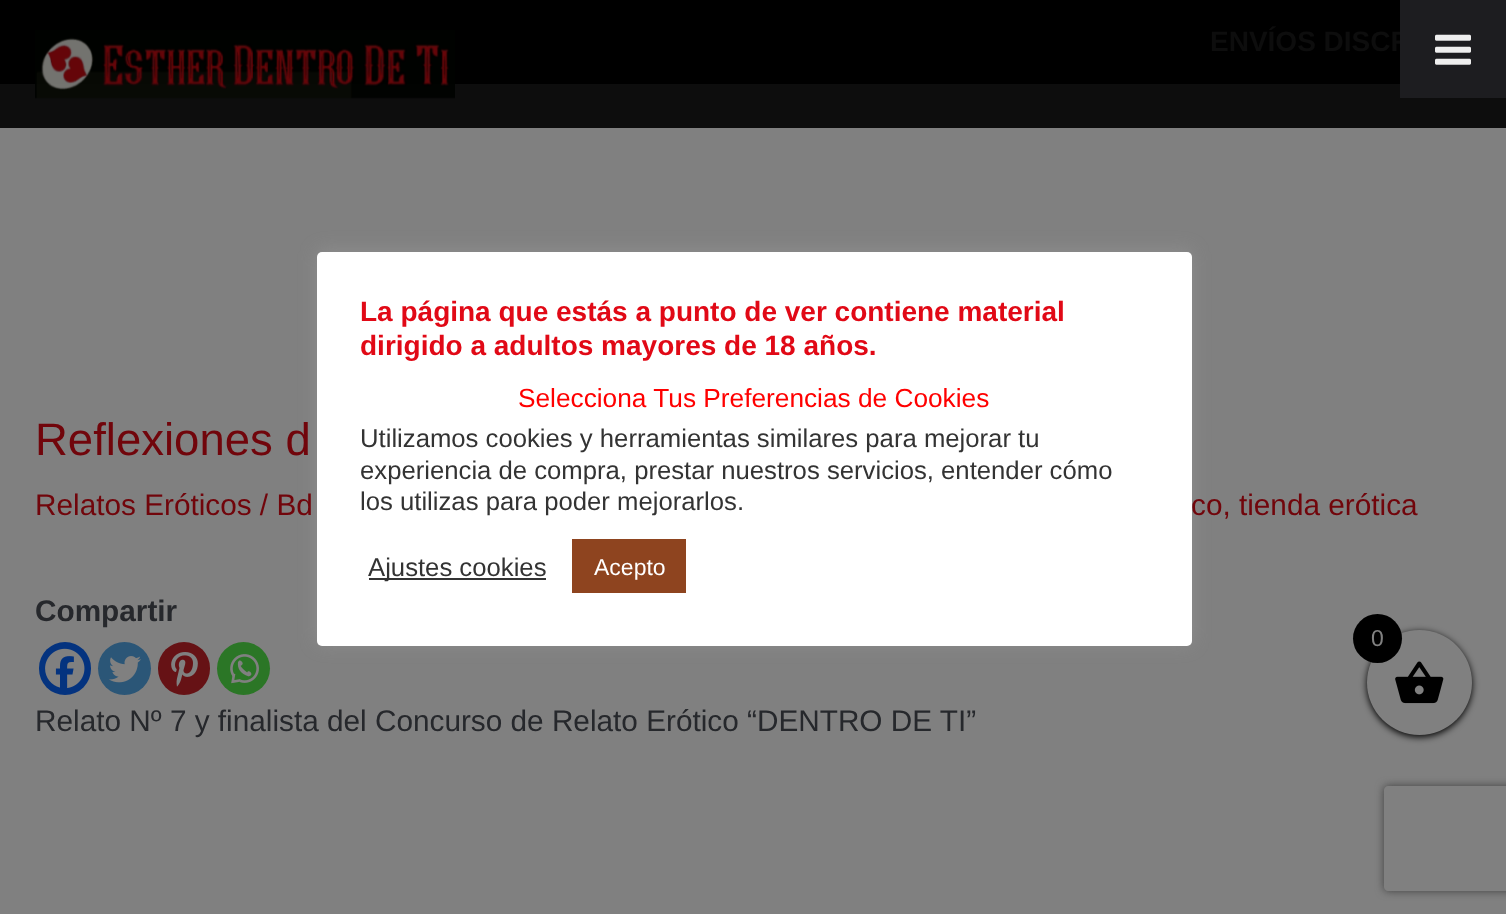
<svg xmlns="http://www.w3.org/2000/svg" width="1506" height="914">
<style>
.a{font:bold 28px Liberation Sans;fill:#0d0d0d}
.b{font:45.5px Liberation Sans;fill:#71050b}
.c{font:29.75px Liberation Sans;fill:#71050b}
.d{font:bold 29.75px Liberation Sans;fill:#26282c}
.e{font:29.75px Liberation Sans;fill:#26282c}
.f{font:bold 28px Liberation Sans;fill:#e10916}
.g{font:26.25px Liberation Sans;fill:#f00}
.h{font:25.7px Liberation Sans;fill:#333}
.i{font:23px Liberation Sans;fill:#fff}
.j{font:23px Liberation Sans;fill:#808080}
</style>
<defs>
<clipPath id="clip1"><path d="M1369 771h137v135h-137zm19 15h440c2 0 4 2 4 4v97c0 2-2 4-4 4h-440c-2 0-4-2-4-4v-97c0-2 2-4 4-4z" clip-rule="evenodd"/></clipPath>
</defs>
<rect width="100%" height="100%" fill="#808080"/>
<path fill="#0d0d0d" d="M0 84h1506v44H0z"/>
<path fill="#000" d="M0 0h1400v84H0z"/>
<image href="1.png" x="35" y="29" width="420" height="70"/>
<rect fill="#04337f" x="39" y="642" width="52" height="53" rx="26"/>
<image href="2.png" x="45" y="648" width="40" height="40"/>
<circle fill="#2b5677" cx="124.5" cy="668.5" r="26.5"/>
<image href="3.png" x="109" y="656" width="32" height="27"/>
<rect fill="#661215" x="158" y="642" width="52" height="53" rx="26"/>
<image href="4.png" x="171" y="652" width="27" height="35"/>
<circle fill="#2b7626" cx="243.5" cy="668.5" r="26.5"/>
<image href="5.png" x="230" y="654" width="29" height="30"/>
<rect fill="#acabab4d" filter="blur(9px)" x="317" y="250" width="875" height="394" rx="5"/>
<rect fill="#fff" x="317" y="252" width="875" height="394" rx="5"/>
<path fill="#333" d="M369 578h177v2H369z"/>
<path fill="#8e441f" d="M572 539h114v54H572z"/>
<rect fill="#000" filter="blur(3.5px)" x="1367" y="632" width="105" height="105" rx="52.5"/>
<circle fill="#808080" cx="1419.5" cy="682.5" r="52.5"/>
<image href="6.png" x="1395" y="661" width="49" height="43"/>
<circle fill="#000" cx="1377.5" cy="638.5" r="24.5"/>
<g clip-path="url(#clip1)">
<rect fill="#404040" filter="blur(4.5px)" x="1384" y="786" width="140" height="105" rx="4"/>
</g>
<text class="a" x="1210" y="51">ENVÍOS DISCR</text>
<text class="b" x="35" y="455">Reflexiones d</text>
<text class="c" x="35" y="515">Relatos Eróticos / Bd</text>
<text class="c" x="1191" y="515">co, tienda erótica</text>
<text class="d" x="35" y="621">Compartir</text>
<text class="e" x="35" y="731">Relato Nº 7 y finalista del Concurso de Relato Erótico “DENTRO DE TI”</text>
<text class="f" x="360" y="321">La página que estás a punto de ver contiene material</text>
<text class="f" x="360" y="355">dirigido a adultos mayores de 18 años.</text>
<text class="g" x="518" y="407">Selecciona Tus Preferencias de Cookies</text>
<text class="h" x="360" y="447">Utilizamos cookies y herramientas similares para mejorar tu</text>
<text class="h" x="360" y="479">experiencia de compra, prestar nuestros servicios, entender cómo</text>
<text class="h" x="360" y="510">los utilizas para poder mejorarlos.</text>
<text class="h" x="368" y="576">Ajustes cookies</text>
<text class="i" x="594" y="575">Acepto</text>
<text class="j" x="1371" y="646">0</text>
<path fill="#1d1d20" d="M1400 0h106v98H1400z"/>
<image href="7.png" x="1435" y="34" width="36" height="31"/>
</svg>
